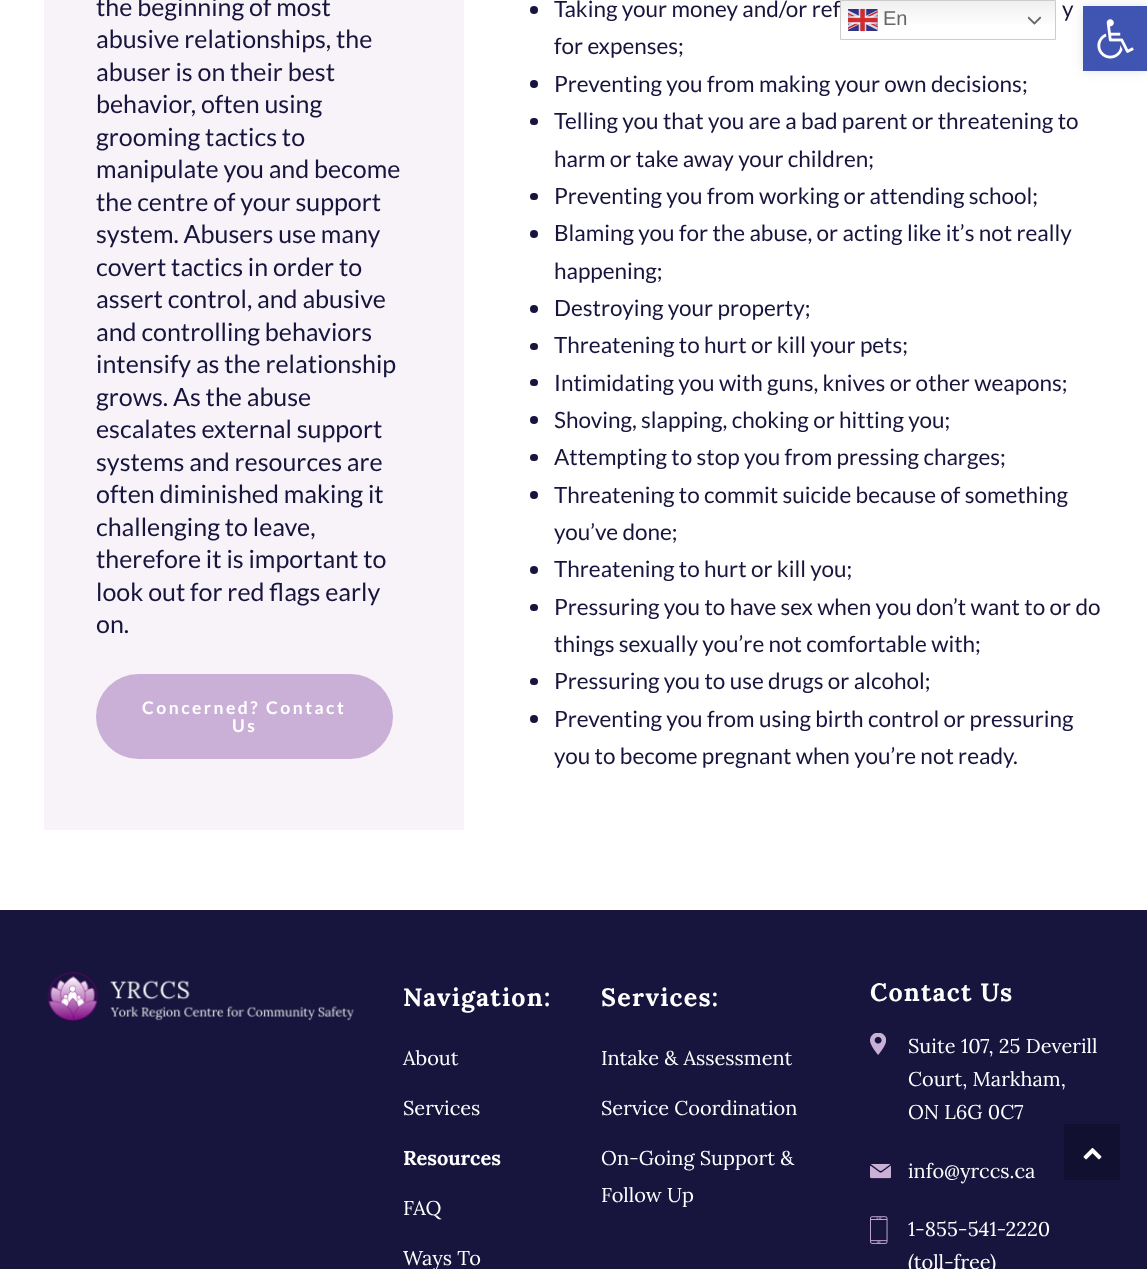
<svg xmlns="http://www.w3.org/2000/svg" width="1147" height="1269">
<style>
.a{font:25px Lato;fill:#17143d}
.b{font:bold 17.5px Lato;letter-spacing:2.5px;fill:#fff}
.c{font:22.5px Lato;fill:#17143d}
.d{font:bold 25px Lora;letter-spacing:1.25px;fill:#fff}
.e{font:20px Lora;fill:#fff}
.f{font:bold 20px Lora;fill:#fff}
.g{font:20px Liberation Sans;fill:#666}
</style>
<defs>
<linearGradient id="g1" gradientUnits="userSpaceOnUse" x1="948" y1="0" x2="948" y2="40"><stop offset="0" stop-color="#efefef"/><stop offset="0.7" stop-color="#fff"/></linearGradient>
</defs>
<rect width="100%" height="100%" fill="#fff"/>
<path fill="#f7f3f9" d="M44 0h420v830H44z"/>
<rect fill="#cab0d7" x="96" y="674" width="297" height="85" rx="42.5"/>
<circle fill="#17143d" cx="534" cy="10" r="4"/>
<circle fill="#17143d" cx="534" cy="84" r="4"/>
<rect fill="#17143d" x="530" y="118" width="8" height="7" rx="3.5"/>
<rect fill="#17143d" x="530" y="193" width="8" height="7" rx="3.5"/>
<circle fill="#17143d" cx="534" cy="234" r="4"/>
<circle fill="#17143d" cx="534" cy="309" r="4"/>
<rect fill="#17143d" x="530" y="343" width="8" height="7" rx="3.5"/>
<rect fill="#17143d" x="530" y="379" width="8" height="7" rx="3.5"/>
<circle fill="#17143d" cx="534" cy="420" r="4"/>
<rect fill="#17143d" x="530" y="454" width="8" height="7" rx="3.5"/>
<circle fill="#17143d" cx="534" cy="495" r="4"/>
<circle fill="#17143d" cx="534" cy="570" r="4"/>
<rect fill="#17143d" x="530" y="604" width="8" height="7" rx="3.5"/>
<rect fill="#17143d" x="530" y="678" width="8" height="7" rx="3.5"/>
<circle fill="#17143d" cx="534" cy="719" r="4"/>
<path fill="#17143d" d="M0 910h1147v359H0z"/>
<image href="1.png" x="47" y="972" width="307" height="49"/>
<image href="2.png" x="870" y="1033" width="16" height="22"/>
<image href="3.png" x="870" y="1164" width="21" height="15"/>
<image href="4.png" x="870" y="1216" width="18" height="28"/>
<path fill="#0000001a" filter="blur(6px)" d="M1083 6h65v65H1083z"/>
<path fill="#4054b2" d="M1083 6h64v65H1083z"/>
<image href="5.png" x="1097" y="19" width="37" height="40"/>
<path fill="url(#g1)" d="M841 1h214v23H841z"/>
<path fill="none" stroke="#ccc" d="M840.5 0.5h215v39H840.5z"/>
<image href="6.png" x="848" y="8" width="30" height="24"/>
<image href="7.png" x="1028" y="16" width="13" height="9"/>
<path fill="#121031" d="M1064 1124h56v56H1064z"/>
<image href="8.png" x="1083" y="1147" width="19" height="13"/>
<text class="a" x="96" y="16">the beginning of most</text>
<text class="a" x="96" y="48">abusive relationships, the</text>
<text class="a" x="96" y="81">abuser is on their best</text>
<text class="a" x="96" y="113">behavior, often using</text>
<text class="a" x="96" y="146">grooming tactics to</text>
<text class="a" x="96" y="178">manipulate you and become</text>
<text class="a" x="96" y="211">the centre of your support</text>
<text class="a" x="96" y="243">system. Abusers use many</text>
<text class="a" x="96" y="276">covert tactics in order to</text>
<text class="a" x="96" y="308">assert control, and abusive</text>
<text class="a" x="96" y="341">and controlling behaviors</text>
<text class="a" x="96" y="373">intensify as the relationship</text>
<text class="a" x="96" y="406">grows. As the abuse</text>
<text class="a" x="96" y="438">escalates external support</text>
<text class="a" x="96" y="471">systems and resources are</text>
<text class="a" x="96" y="503">often diminished making it</text>
<text class="a" x="96" y="536">challenging to leave,</text>
<text class="a" x="96" y="568">therefore it is important to</text>
<text class="a" x="96" y="601">look out for red flags early</text>
<text class="a" x="96" y="633">on.</text>
<text class="b" x="142" y="714">Concerned? Contact</text>
<text class="b" x="232" y="732">Us</text>
<text class="c" x="554" y="17">Taking your money and/or ref</text>
<text class="c" x="1062" y="17">y</text>
<text class="c" x="554" y="54">for expenses;</text>
<text class="c" x="554" y="92">Preventing you from making your own decisions;</text>
<text class="c" x="554" y="129">Telling you that you are a bad parent or threatening to</text>
<text class="c" x="554" y="167">harm or take away your children;</text>
<text class="c" x="554" y="204">Preventing you from working or attending school;</text>
<text class="c" x="554" y="241">Blaming you for the abuse, or acting like it’s not really</text>
<text class="c" x="554" y="279">happening;</text>
<text class="c" x="554" y="316">Destroying your property;</text>
<text class="c" x="554" y="353">Threatening to hurt or kill your pets;</text>
<text class="c" x="554" y="391">Intimidating you with guns, knives or other weapons;</text>
<text class="c" x="554" y="428">Shoving, slapping, choking or hitting you;</text>
<text class="c" x="554" y="465">Attempting to stop you from pressing charges;</text>
<text class="c" x="554" y="503">Threatening to commit suicide because of something</text>
<text class="c" x="554" y="540">you’ve done;</text>
<text class="c" x="554" y="577">Threatening to hurt or kill you;</text>
<text class="c" x="554" y="615">Pressuring you to have sex when you don’t want to or do</text>
<text class="c" x="554" y="652">things sexually you’re not comfortable with;</text>
<text class="c" x="554" y="689">Pressuring you to use drugs or alcohol;</text>
<text class="c" x="554" y="727">Preventing you from using birth control or pressuring</text>
<text class="c" x="554" y="764">you to become pregnant when you’re not ready.</text>
<text class="d" x="403" y="1006">Navigation:</text>
<text class="e" x="403" y="1065">About</text>
<text class="e" x="403" y="1115">Services</text>
<text class="f" x="403" y="1165">Resources</text>
<text class="e" x="403" y="1215">FAQ</text>
<text class="e" x="403" y="1265">Ways To</text>
<text class="d" x="601" y="1006">Services:</text>
<text class="e" x="601" y="1065">Intake &amp; Assessment</text>
<text class="e" x="601" y="1115">Service Coordination</text>
<text class="e" x="601" y="1165">On-Going Support &amp;</text>
<text class="e" x="601" y="1202">Follow Up</text>
<text class="d" x="870" y="1001">Contact Us</text>
<text class="e" x="908" y="1053">Suite 107, 25 Deverill</text>
<text class="e" x="908" y="1086">Court, Markham,</text>
<text class="e" x="908" y="1119">ON L6G 0C7</text>
<text class="e" x="908" y="1178">info@yrccs.ca</text>
<text class="e" x="908" y="1236">1-855-541-2220</text>
<text class="e" x="908" y="1269">(toll-free)</text>
<text class="g" x="883" y="25">En</text>
</svg>
